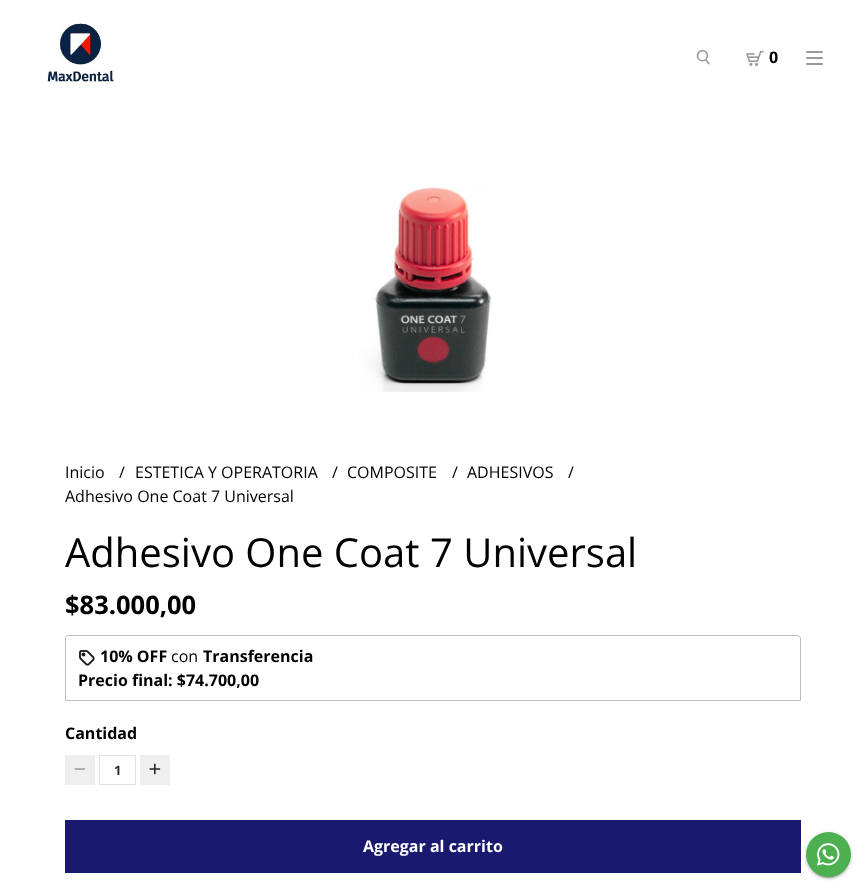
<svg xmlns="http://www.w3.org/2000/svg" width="866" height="892">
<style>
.a{font:bold 16px Open Sans;fill:#000}
.b{font:16px Open Sans;fill:#000}
.c{font:40px Open Sans;fill:#000}
.d{font:bold 25.5px Open Sans;fill:#000}
.e{font:bold 13px Open Sans;fill:#2e2e2e}
.f{font:bold 16px Open Sans;fill:#fff}
</style>
<rect width="100%" height="100%" fill="#fff"/>
<image href="1.png" x="46" y="23" width="70" height="65"/>
<path fill="#999" d="M702.5 50c5 0 7.5 6 4 9.5c.5 .5 4 4 3 5c-1 .5-3.5-3.5-4-4c-5.5 3.5-12-4-7-9c1-1 2.5-1.5 4-1.5zm0 1.5c-5.5 0-5.5 8.5 0 8.5c5.5 0 5.5-8.5 0-8.5z"/>
<image href="2.png" x="746" y="50" width="18" height="16"/>
<path fill="none" stroke="#999" stroke-width="2" stroke-linecap="round" stroke-linejoin="round" d="M807 52h15m-15 6h15m-15 6h15"/>
<image href="3.png" x="358" y="187" width="133" height="205"/>
<path fill="none" stroke="#bdbdbd" d="M69 635.5h728c2 0 3.5 1.5 3.5 3.5v61.5h-735v-61.5c0-2 1.5-3.5 3.5-3.5z"/>
<image href="4.png" x="79" y="650" width="16" height="16"/>
<path fill="#efefef" d="M65 755h30v30H65z"/>
<image href="5.png" x="74" y="768" width="12" height="2"/>
<path fill="none" stroke="#e1e1e1" d="M99.5 755.5h36v29H99.5z"/>
<path fill="#efefef" d="M140 755h30v30H140z"/>
<image href="6.png" x="149" y="763" width="12" height="12"/>
<path fill="#191970" d="M65 820h736v53H65z"/>
<rect fill="#00000033" filter="blur(0.5px)" x="808" y="837" width="41" height="41" rx="20.5"/>
<rect fill="#0000001f" filter="blur(2.5px)" x="806" y="833" width="45" height="45" rx="22.5"/>
<rect fill="#00000024" filter="blur(1px)" x="806" y="834" width="45" height="45" rx="22.5"/>
<circle fill="#4caf50" cx="828.5" cy="854.5" r="22.5"/>
<image href="7.png" x="817" y="843" width="23" height="23"/>
<text class="a" x="769" y="63">0</text>
<text class="b" x="65" y="478">Inicio</text>
<text class="b" x="119" y="478">/</text>
<text class="b" x="135" y="478">ESTETICA Y OPERATORIA</text>
<text class="b" x="332" y="478">/</text>
<text class="b" x="347" y="478">COMPOSITE</text>
<text class="b" x="452" y="478">/</text>
<text class="b" x="467" y="478">ADHESIVOS</text>
<text class="b" x="568" y="478">/</text>
<text class="b" x="65" y="502">Adhesivo One Coat 7 Universal</text>
<text class="c" x="65" y="567">Adhesivo One Coat 7 Universal</text>
<text class="d" x="65" y="614">$83.000,00</text>
<text class="a" x="100" y="662">10% OFF</text>
<text class="b" x="171" y="662">con</text>
<text class="a" x="203" y="662">Transferencia</text>
<text class="a" x="78" y="686">Precio final: $74.700,00</text>
<text class="a" x="65" y="739">Cantidad</text>
<text class="e" x="114" y="775">1</text>
<text class="f" x="363" y="852">Agregar al carrito</text>
</svg>
